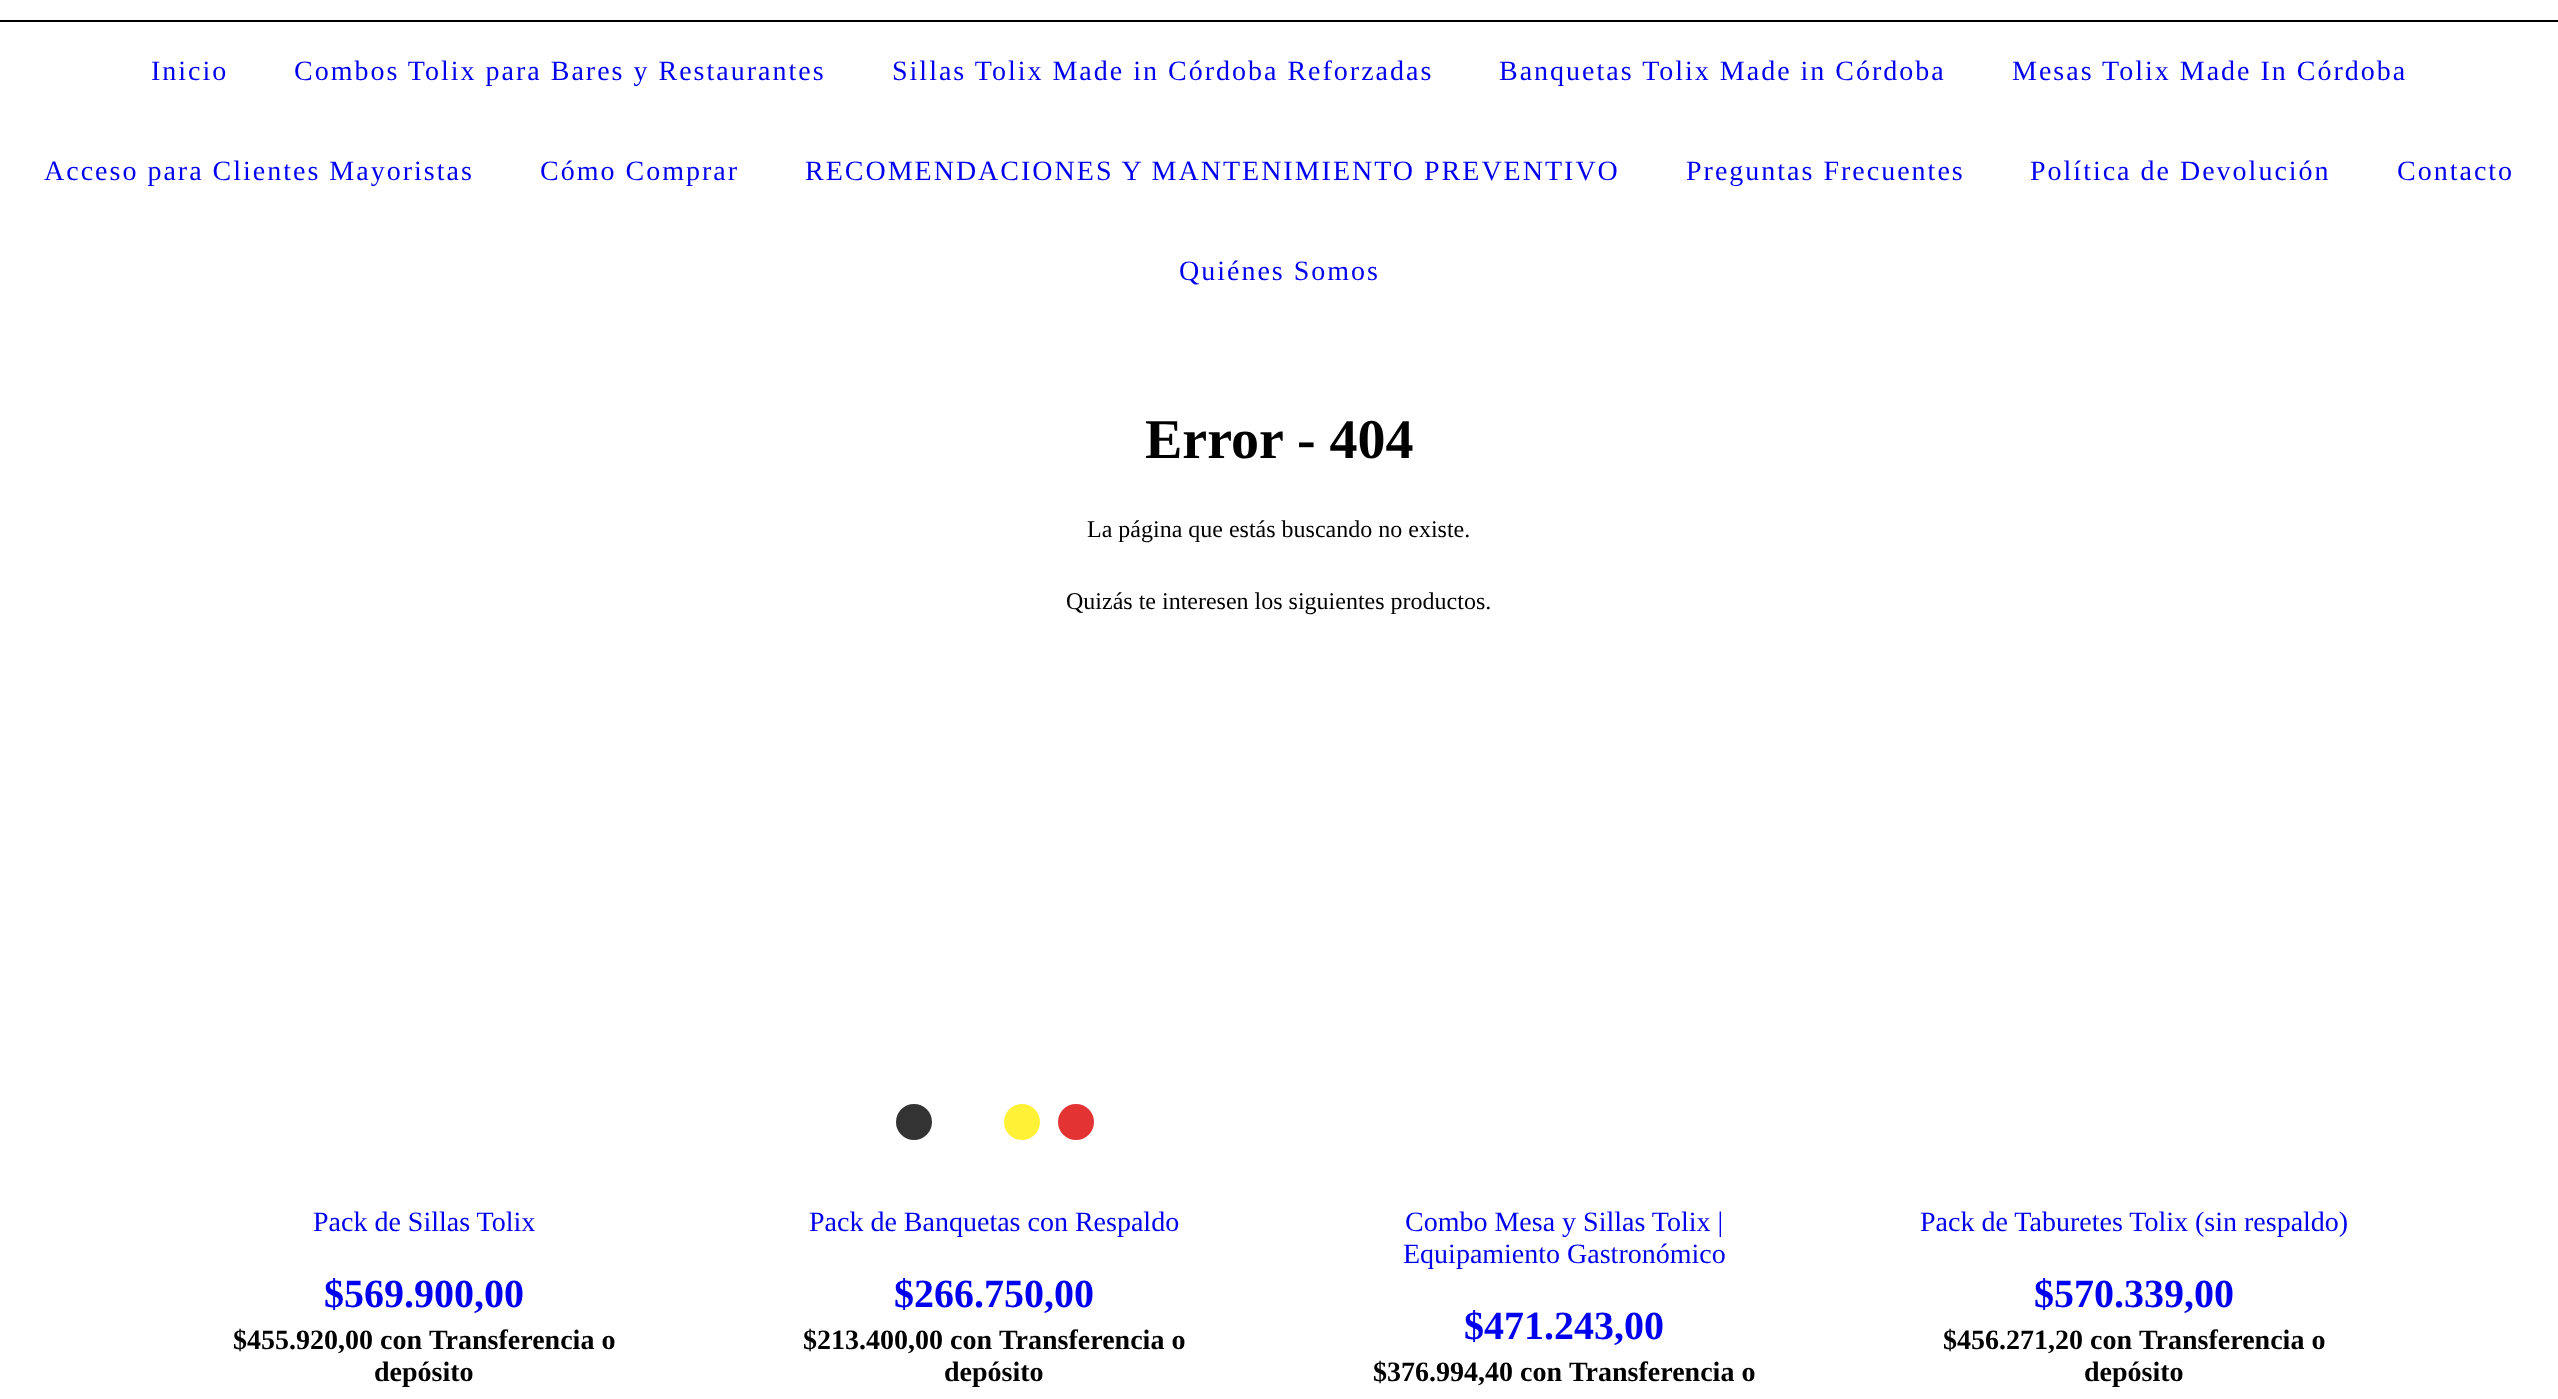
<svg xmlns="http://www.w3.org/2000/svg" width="2558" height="1399">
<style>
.a{font:28px Liberation Serif;letter-spacing:2px;fill:#00e}
.b{font:bold 56px Liberation Serif;fill:#000}
.c{font:24px Liberation Serif;fill:#000}
.d{font:28px Liberation Serif;fill:#00e}
.e{font:bold 40px Liberation Serif;fill:#00e}
.f{font:bold 28px Liberation Serif;fill:#000}
</style>
<rect width="100%" height="100%" fill="#fff"/>
<path fill="#000" d="M0 20h2558v2H0z"/>
<circle fill="#333" cx="914" cy="1122" r="18"/>
<circle fill="#fff135" cx="1022" cy="1122" r="18"/>
<circle fill="#e33333" cx="1076" cy="1122" r="18"/>
<text class="a" x="151" y="80">Inicio</text>
<text class="a" x="294" y="80">Combos Tolix para Bares y Restaurantes</text>
<text class="a" x="892" y="80">Sillas Tolix Made in Córdoba Reforzadas</text>
<text class="a" x="1499" y="80">Banquetas Tolix Made in Córdoba</text>
<text class="a" x="2012" y="80">Mesas Tolix Made In Córdoba</text>
<text class="a" x="44" y="180">Acceso para Clientes Mayoristas</text>
<text class="a" x="540" y="180">Cómo Comprar</text>
<text class="a" x="805" y="180">RECOMENDACIONES Y MANTENIMIENTO PREVENTIVO</text>
<text class="a" x="1686" y="180">Preguntas Frecuentes</text>
<text class="a" x="2030" y="180">Política de Devolución</text>
<text class="a" x="2397" y="180">Contacto</text>
<text class="a" x="1179" y="280">Quiénes Somos</text>
<text class="b" x="1145" y="458">Error - 404</text>
<text class="c" x="1087" y="537">La página que estás buscando no existe.</text>
<text class="c" x="1066" y="609">Quizás te interesen los siguientes productos.</text>
<text class="d" x="313" y="1231">Pack de Sillas Tolix</text>
<text class="e" x="324" y="1307">$569.900,00</text>
<text class="f" x="233" y="1349">$455.920,00 con</text>
<text class="f" x="429" y="1349">Transferencia o</text>
<text class="f" x="374" y="1381">depósito</text>
<text class="d" x="809" y="1231">Pack de Banquetas con Respaldo</text>
<text class="e" x="894" y="1307">$266.750,00</text>
<text class="f" x="803" y="1349">$213.400,00 con</text>
<text class="f" x="999" y="1349">Transferencia o</text>
<text class="f" x="944" y="1381">depósito</text>
<text class="d" x="1405" y="1231">Combo Mesa y Sillas Tolix |</text>
<text class="d" x="1403" y="1263">Equipamiento Gastronómico</text>
<text class="e" x="1464" y="1339">$471.243,00</text>
<text class="f" x="1373" y="1381">$376.994,40 con</text>
<text class="f" x="1569" y="1381">Transferencia o</text>
<text class="d" x="1920" y="1231">Pack de Taburetes Tolix (sin respaldo)</text>
<text class="e" x="2034" y="1307">$570.339,00</text>
<text class="f" x="1943" y="1349">$456.271,20 con</text>
<text class="f" x="2139" y="1349">Transferencia o</text>
<text class="f" x="2084" y="1381">depósito</text>
</svg>
